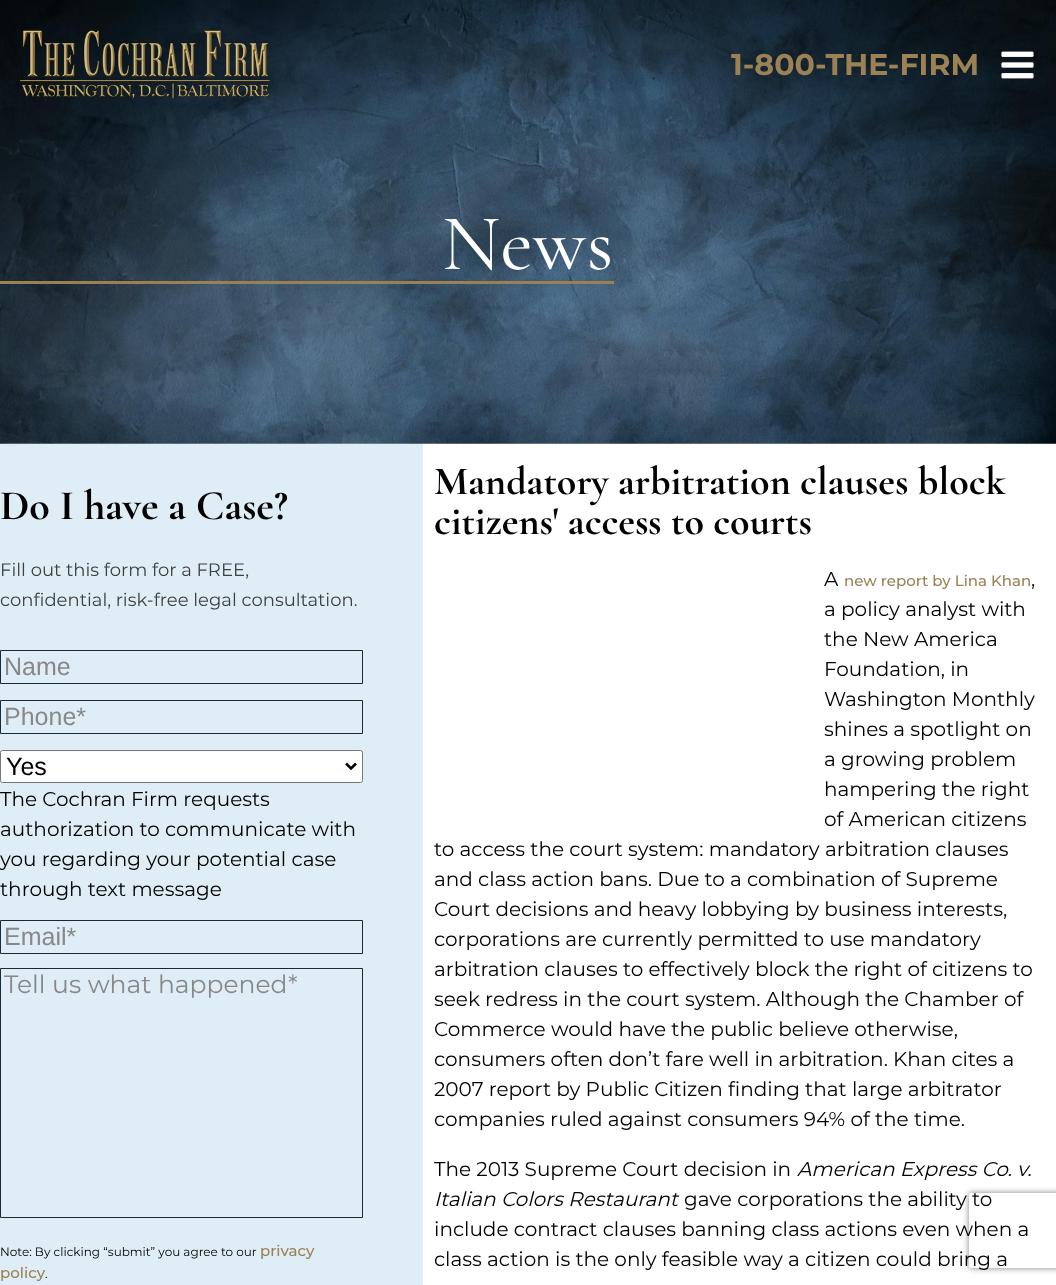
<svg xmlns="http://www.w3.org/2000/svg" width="1056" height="1285">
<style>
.a{font:bold 30px Montserrat;fill:#9b8154}
.b{font:80px Cormorant Garamond;fill:#fff}
.c{font:bold 42px Cormorant Garamond;fill:#010101}
.d{font:18px Montserrat;fill:#404040}
.e{font:25px Liberation Sans;fill:#888}
.f{font:25px Liberation Sans;fill:#010101}
.g{font:20px Montserrat;fill:#010101}
.h{font:25px Montserrat;fill:#888}
.i{font:12px Montserrat;fill:#010101}
.j{font:500 15px Montserrat;fill:#9b8154}
.k{font:bold 40px Cormorant Garamond;fill:#010101}
.l{font:italic 20px Montserrat;fill:#010101}
</style>
<defs>
<clipPath id="clip1"><path d="M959 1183h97v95h-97zm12.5 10h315c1.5 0 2.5 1 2.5 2.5v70c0 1.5-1 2.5-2.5 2.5h-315c-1.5 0-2.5-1-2.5-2.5v-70c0-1.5 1-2.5 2.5-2.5z" clip-rule="evenodd"/></clipPath>
</defs>
<rect width="100%" height="100%" fill="#fff"/>
<image href="1.png" x="0" y="0" width="1056" height="444"/>
<image href="2.png" x="20" y="30" width="250" height="69"/>
<image href="3.png" x="1001" y="51" width="33" height="28"/>
<path fill="#9a8053" d="M0 281h614v3H0z"/>
<path fill="#deedf6" d="M0 444h423v841H0z"/>
<path fill="none" stroke="#172a3a" d="M0.5 650.5h362v33H0.5z"/>
<path fill="none" stroke="#172a3a" d="M0.5 700.5h362v33H0.5z"/>
<rect fill="#fff" stroke="#767676" x="0.5" y="750.5" width="362" height="32" rx="2"/>
<path fill="none" stroke="#000" stroke-width="2.5" d="M346 763.5l5 5l5-5"/>
<path fill="none" stroke="#172a3a" d="M0.5 920.5h362v33H0.5z"/>
<path fill="none" stroke="#172a3a" d="M0.5 968.5h362v249H0.5z"/>
<g clip-path="url(#clip1)">
<rect fill="#808080" filter="blur(3px)" x="969" y="1193" width="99" height="75" rx="2.5"/>
</g>
<text class="a" x="731" y="75">1-800-THE-FIRM</text>
<text class="b" x="442" y="269">News</text>
<text class="c" x="0" y="519">Do I have a Case?</text>
<text class="d" x="0" y="576">Fill out this form for a FREE,</text>
<text class="d" x="0" y="606">confidential, risk-free legal consultation.</text>
<text class="e" x="4" y="675">Name</text>
<text class="e" x="4" y="725">Phone*</text>
<text class="f" x="6" y="775">Yes</text>
<text class="g" x="0" y="806">The Cochran Firm requests</text>
<text class="g" x="0" y="836">authorization to communicate with</text>
<text class="g" x="0" y="866">you regarding your potential case</text>
<text class="g" x="0" y="896">through text message</text>
<text class="e" x="4" y="945">Email*</text>
<text class="h" x="4" y="993">Tell us what happened*</text>
<text class="i" x="0" y="1256">Note: By clicking “submit” you agree to our</text>
<text class="j" x="260" y="1256">privacy</text>
<text class="j" x="0" y="1278">policy</text>
<text class="i" x="45" y="1278">.</text>
<text class="k" x="434" y="494">Mandatory arbitration clauses block</text>
<text class="k" x="434" y="534">citizens' access to courts</text>
<text class="g" x="824" y="586">A</text>
<text class="j" x="844" y="586">new report by Lina Khan</text>
<text class="g" x="1031" y="586">,</text>
<text class="g" x="824" y="616">a policy analyst with</text>
<text class="g" x="824" y="646">the New America</text>
<text class="g" x="824" y="676">Foundation, in</text>
<text class="g" x="824" y="706">Washington Monthly</text>
<text class="g" x="824" y="736">shines a spotlight on</text>
<text class="g" x="824" y="766">a growing problem</text>
<text class="g" x="824" y="796">hampering the right</text>
<text class="g" x="824" y="826">of American citizens</text>
<text class="g" x="434" y="856">to access the court system: mandatory arbitration clauses</text>
<text class="g" x="434" y="886">and class action bans. Due to a combination of Supreme</text>
<text class="g" x="434" y="916">Court decisions and heavy lobbying by business interests,</text>
<text class="g" x="434" y="946">corporations are currently permitted to use mandatory</text>
<text class="g" x="434" y="976">arbitration clauses to effectively block the right of citizens to</text>
<text class="g" x="434" y="1006">seek redress in the court system. Although the Chamber of</text>
<text class="g" x="434" y="1036">Commerce would have the public believe otherwise,</text>
<text class="g" x="434" y="1066">consumers often don’t fare well in arbitration. Khan cites a</text>
<text class="g" x="434" y="1096">2007 report by Public Citizen finding that large arbitrator</text>
<text class="g" x="434" y="1126">companies ruled against consumers 94% of the time.</text>
<text class="g" x="434" y="1176">The 2013 Supreme Court decision in</text>
<text class="l" x="797" y="1176">American Express Co. v.</text>
<text class="l" x="434" y="1206">Italian Colors Restaurant</text>
<text class="g" x="684" y="1206">gave corporations the ability to</text>
<text class="g" x="434" y="1236">include contract clauses banning class actions even when a</text>
<text class="g" x="434" y="1266">class action is the only feasible way a citizen could bring a</text>
</svg>
